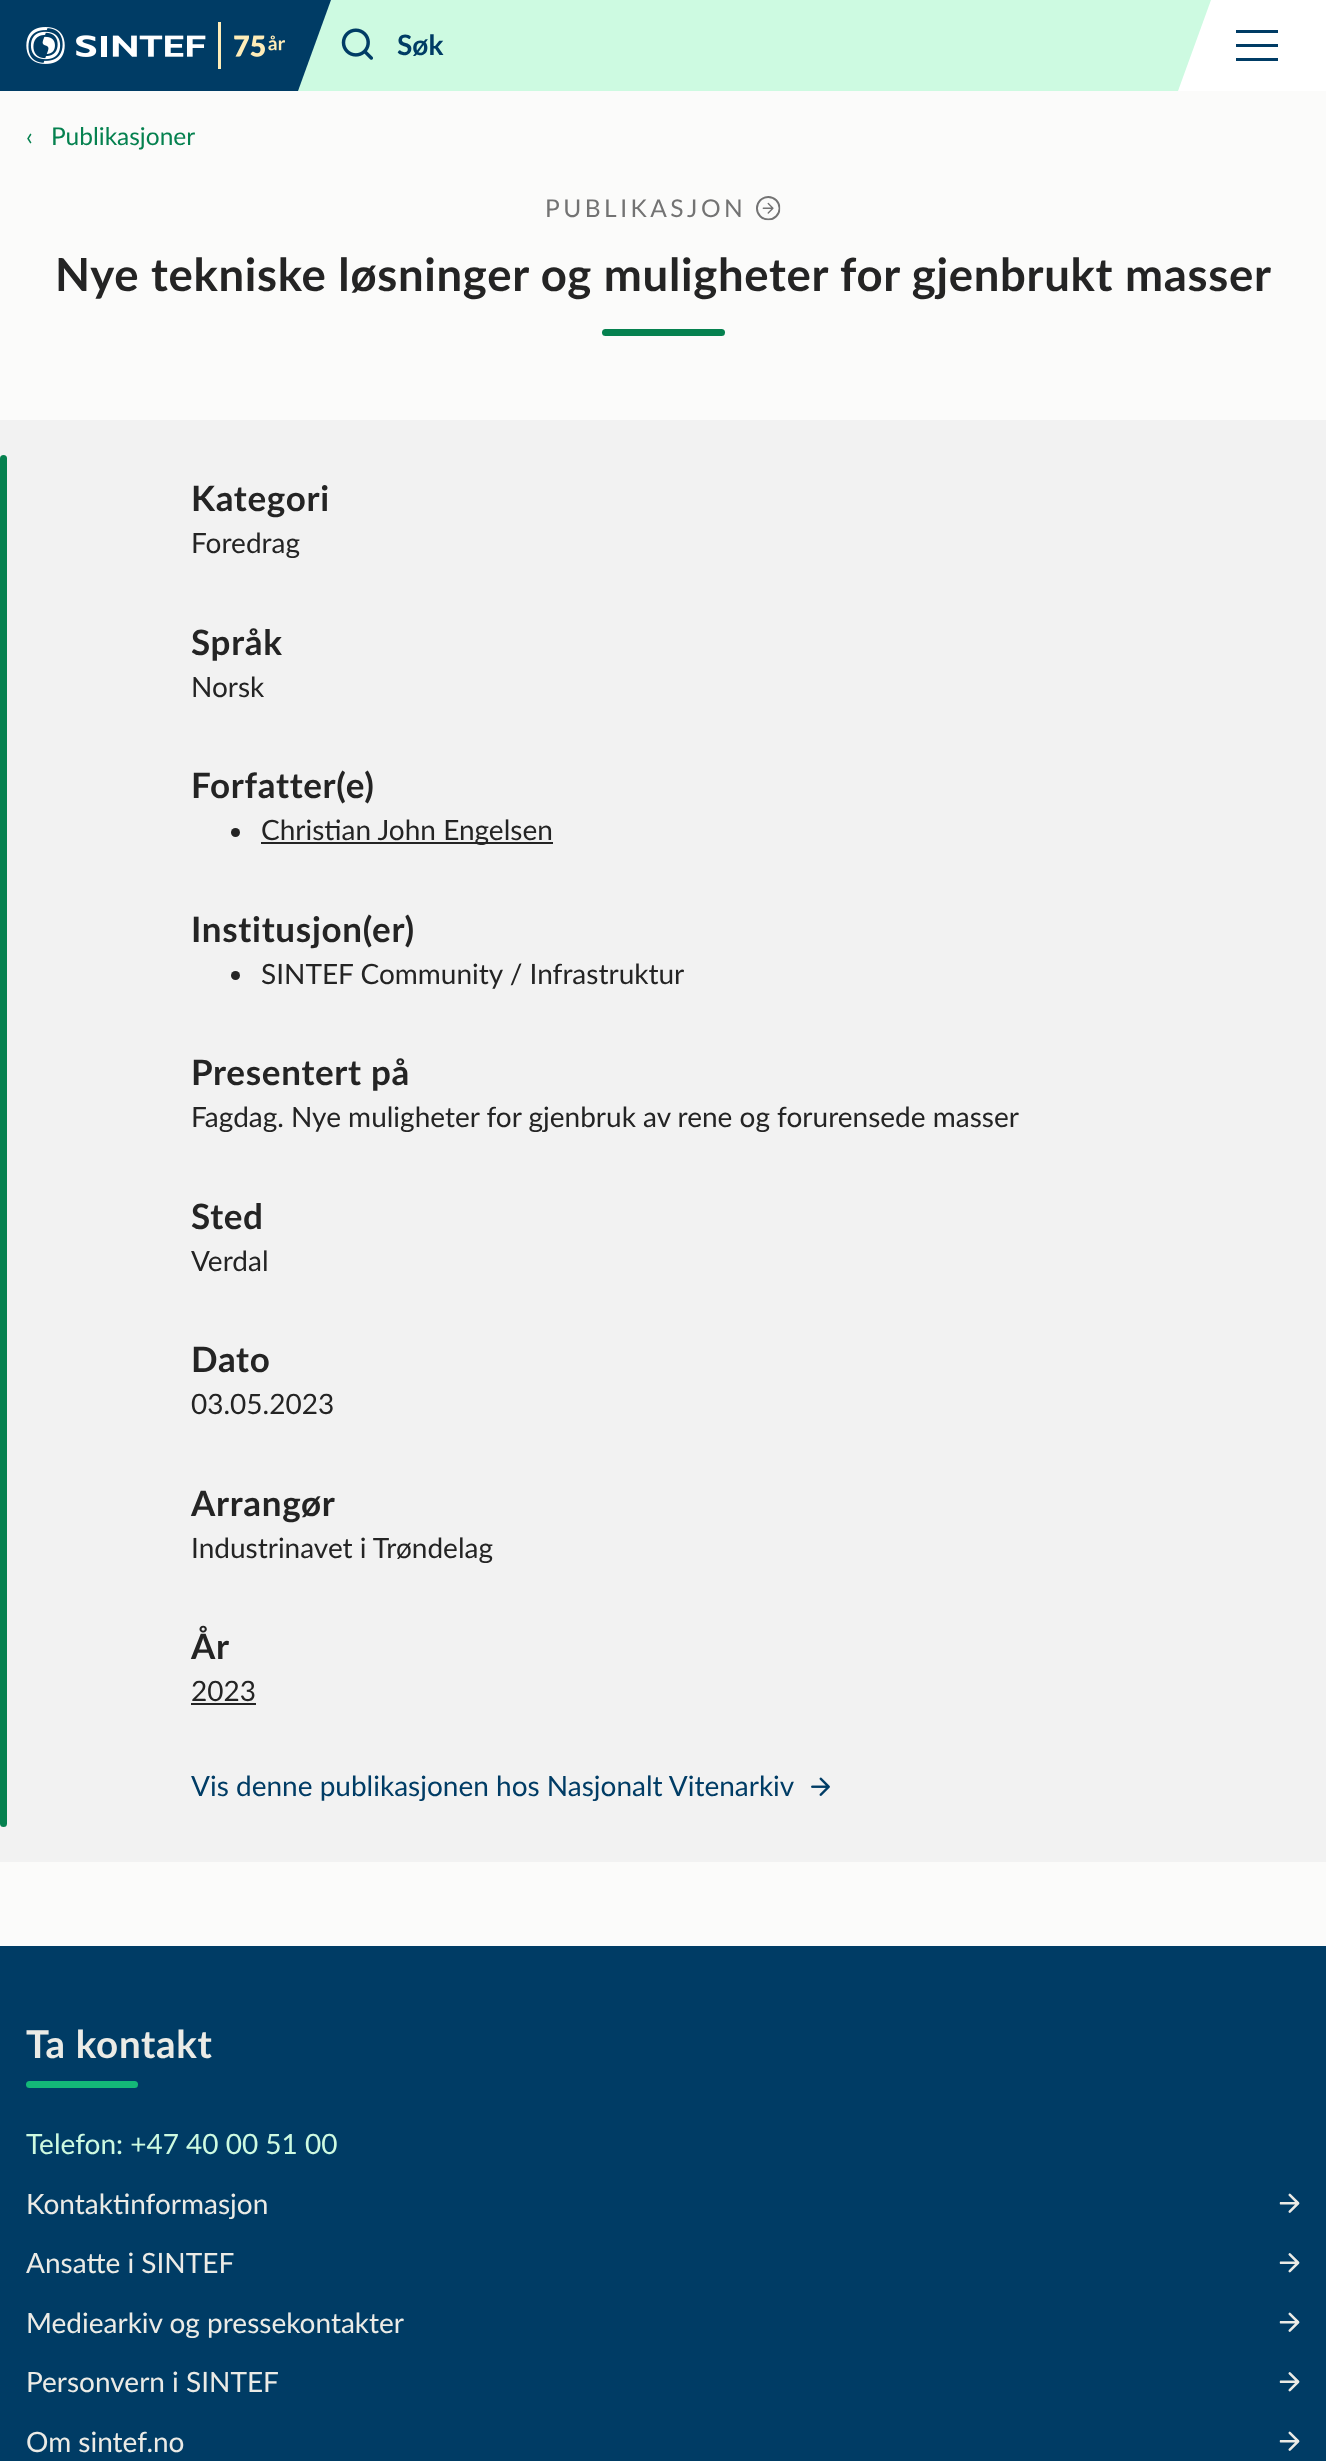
<svg xmlns="http://www.w3.org/2000/svg" width="1326" height="2461">
<style>
.a{font:bold 28px Lato;fill:#003c65}
.b{font:24.5px Lato;fill:#05814f}
.c{font:24.5px Lato;letter-spacing:3.5px;fill:#737373}
.d{font:bold 45.5px Lato;letter-spacing:0.7px;fill:#242424}
.e{font:bold 35px Lato;letter-spacing:0.7px;fill:#242424}
.f{font:28px Lato;fill:#242424}
.g{font:28px Lato;fill:#003c65}
.h{font:bold 38.5px Lato;letter-spacing:0.7px;fill:#ebebe6}
.i{font:28px Lato;fill:#cdfae1}
.j{font:28px Lato;fill:#ebebe6}
</style>
<rect width="100%" height="100%" fill="#fbfbfa"/>
<path fill="#fff" d="M1178 0h148v91H1178z"/>
<path fill="#cdfae1" d="M318 0h893l-33 91h-893z"/>
<path fill="#003c65" d="M46 0h285l-33 91h-285z"/>
<path fill="#003c65" d="M0 0h46v91H0z"/>
<image href="1.png" x="26" y="22" width="259" height="47"/>
<image href="2.png" x="341" y="28" width="32" height="32"/>
<path fill="#003c65" d="M1236 30h42v3H1236z"/>
<path fill="#003c65" d="M1236 44h42v3H1236z"/>
<path fill="#003c65" d="M1236 58h42v3H1236z"/>
<image href="3.png" x="756" y="196" width="25" height="25"/>
<rect fill="#05814f" x="602" y="329" width="123" height="7" rx="3.5"/>
<path fill="#f2f2f2" d="M0 420h1326v1442H0z"/>
<rect fill="#05814f" y="455" width="7" height="1372" rx="3.5"/>
<circle fill="#242424" cx="235.5" cy="832.5" r="4.5"/>
<path fill="#242424" d="M261 842h292v2H261z"/>
<circle fill="#242424" cx="235.5" cy="975.5" r="4.5"/>
<path fill="#242424" d="M191 1703h65v2H191z"/>
<image href="4.png" x="811" y="1777" width="19" height="19"/>
<path fill="#003c65" d="M0 1946h1326v515H0z"/>
<rect fill="#14b978" x="26" y="2081" width="112" height="7" rx="3.5"/>
<image href="5.png" x="1279" y="2193" width="21" height="20"/>
<image href="6.png" x="1279" y="2253" width="21" height="20"/>
<image href="5.png" x="1279" y="2312" width="21" height="20"/>
<image href="6.png" x="1279" y="2372" width="21" height="20"/>
<image href="5.png" x="1279" y="2431" width="21" height="20"/>
<text class="a" x="397" y="55">Søk</text>
<text class="b" x="26" y="145">‹</text>
<text class="b" x="51" y="145">Publikasjoner</text>
<text class="c" x="545" y="217">PUBLIKASJON</text>
<text class="d" x="55" y="291">Nye tekniske løsninger og muligheter for gjenbrukt masser</text>
<text class="e" x="191" y="511">Kategori</text>
<text class="f" x="191" y="553">Foredrag</text>
<text class="e" x="191" y="655">Språk</text>
<text class="f" x="191" y="697">Norsk</text>
<text class="e" x="191" y="798">Forfatter(e)</text>
<text class="f" x="261" y="840">Christian John Engelsen</text>
<text class="e" x="191" y="942">Institusjon(er)</text>
<text class="f" x="261" y="984">SINTEF Community / Infrastruktur</text>
<text class="e" x="191" y="1085">Presentert på</text>
<text class="f" x="191" y="1127">Fagdag. Nye muligheter for gjenbruk av rene og forurensede masser</text>
<text class="e" x="191" y="1229">Sted</text>
<text class="f" x="191" y="1271">Verdal</text>
<text class="e" x="191" y="1372">Dato</text>
<text class="f" x="191" y="1414">03.05.2023</text>
<text class="e" x="191" y="1516">Arrangør</text>
<text class="f" x="191" y="1558">Industrinavet i Trøndelag</text>
<text class="e" x="191" y="1659">År</text>
<text class="f" x="191" y="1701">2023</text>
<text class="g" x="191" y="1796">Vis denne publikasjonen hos Nasjonalt Vitenarkiv</text>
<text class="h" x="26" y="2058">Ta kontakt</text>
<text class="i" x="26" y="2154">Telefon: +47 40 00 51 00</text>
<text class="j" x="26" y="2214">Kontaktinformasjon</text>
<text class="j" x="26" y="2273">Ansatte i SINTEF</text>
<text class="j" x="26" y="2333">Mediearkiv og pressekontakter</text>
<text class="j" x="26" y="2392">Personvern i SINTEF</text>
<text class="j" x="26" y="2452">Om sintef.no</text>
</svg>
